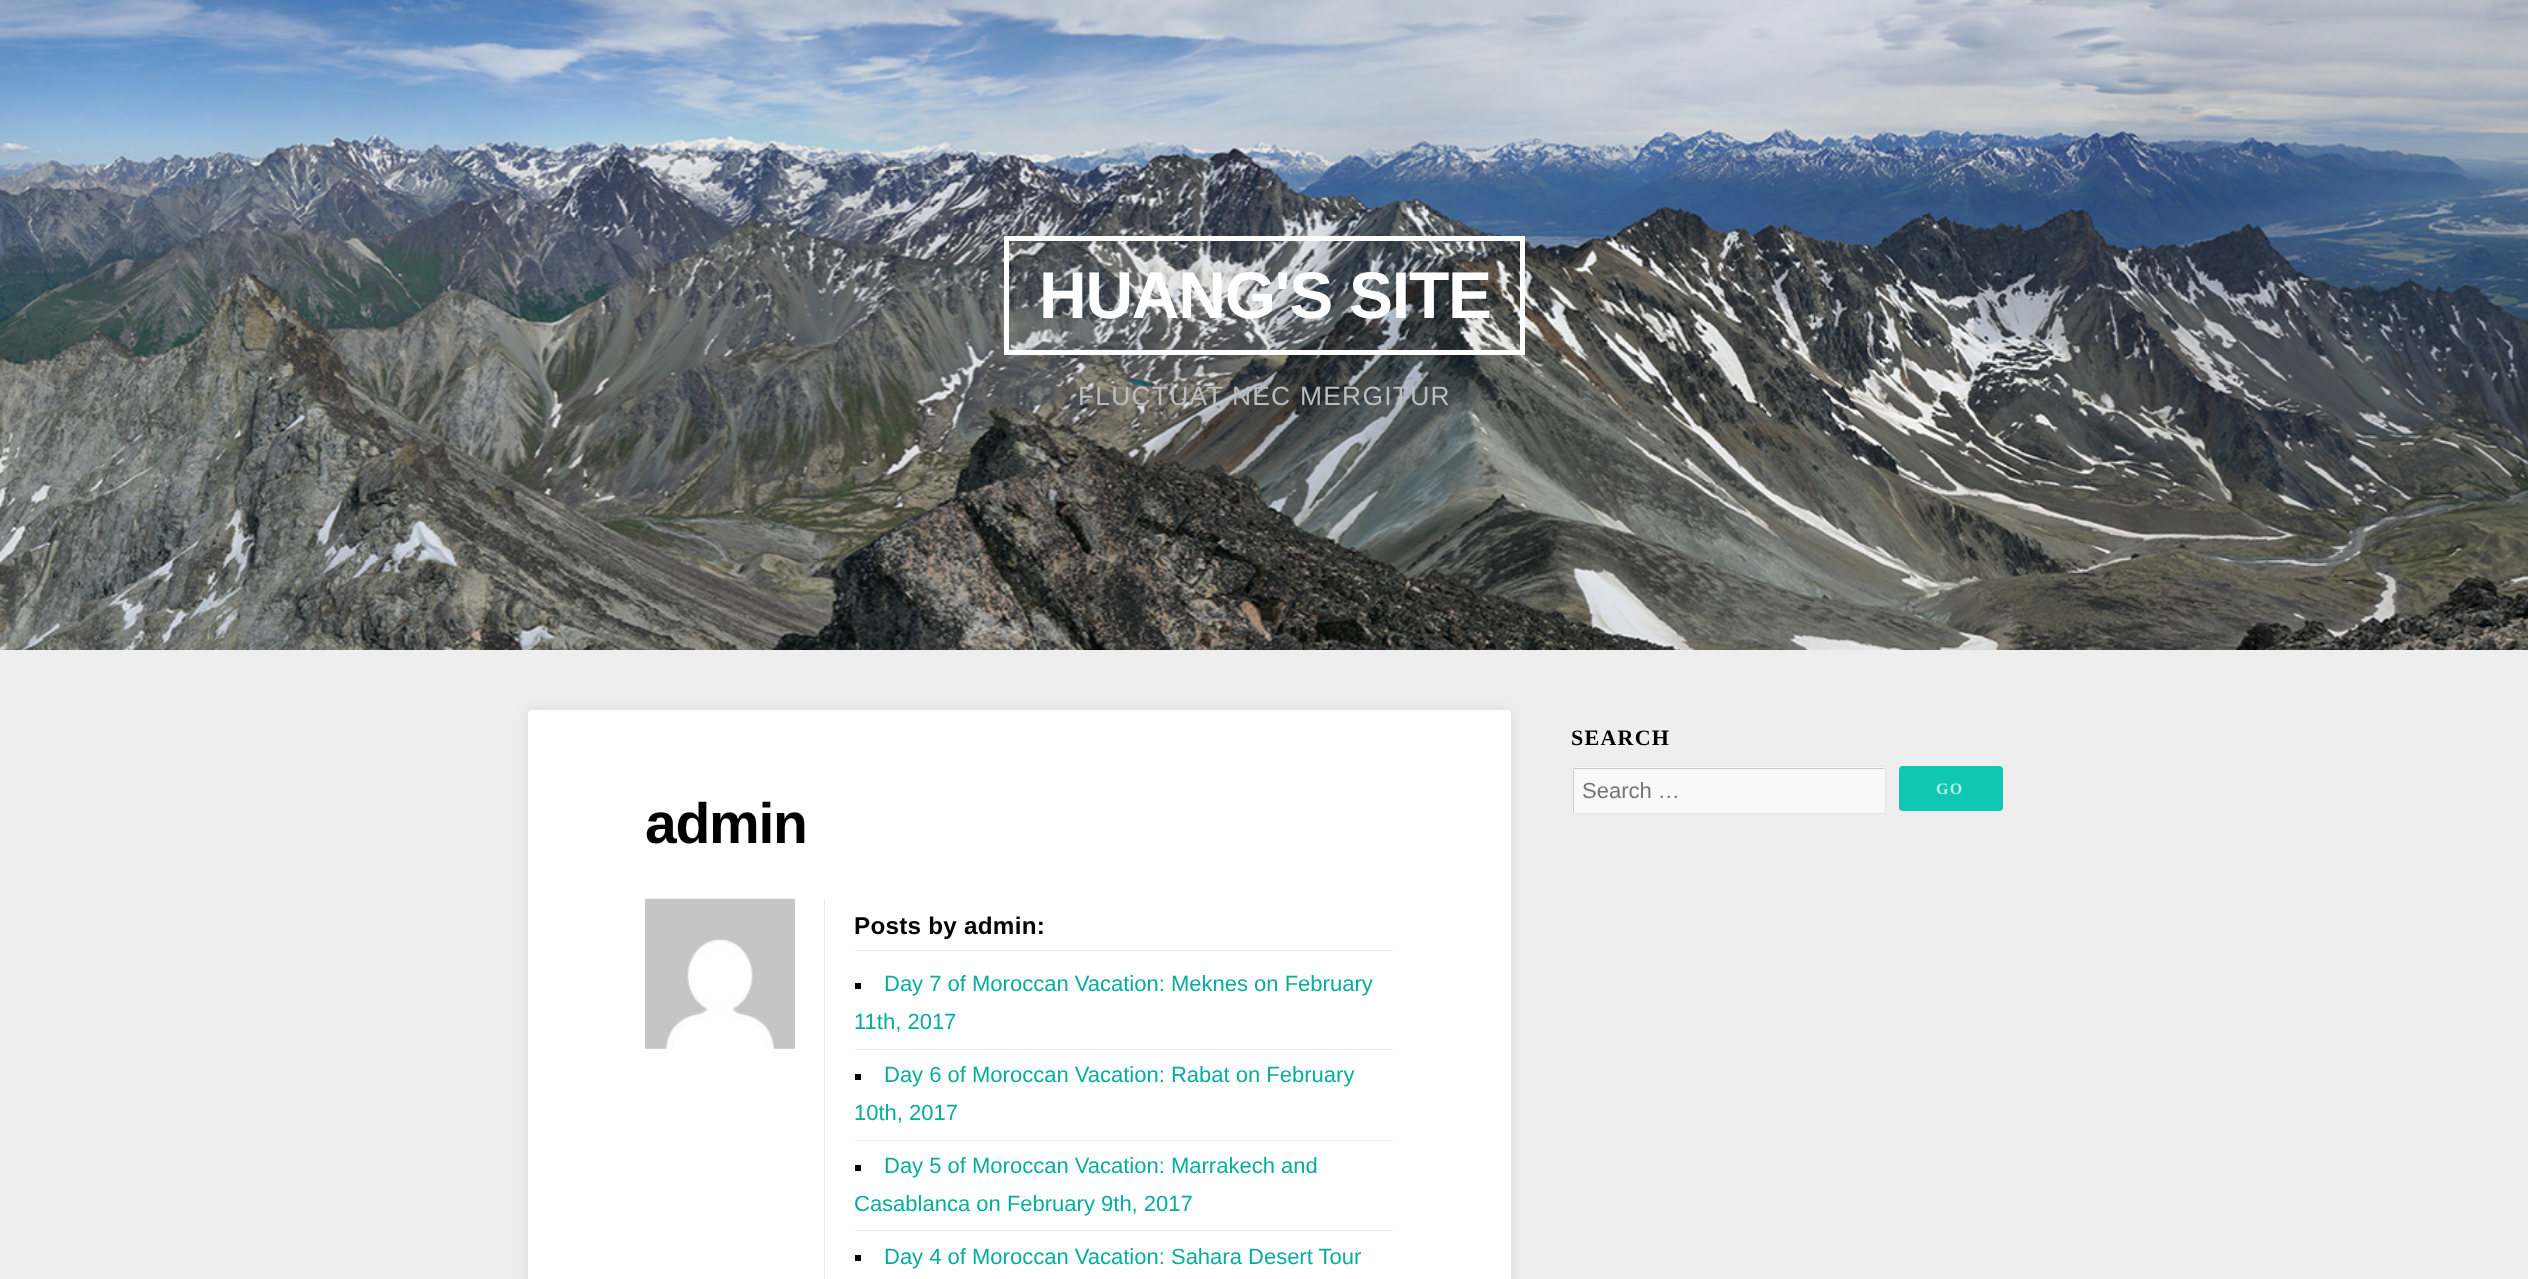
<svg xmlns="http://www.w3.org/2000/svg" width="2528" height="1279">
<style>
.a{font:bold 66px Liberation Sans;letter-spacing:-1.25px;fill:#fff}
.b{font:26.4px Liberation Sans;letter-spacing:1.25px;fill:#bcbdbd}
.c{font:bold 22px Liberation Serif;letter-spacing:1.25px;fill:#000}
.d{font:22px Liberation Sans;fill:#757575}
.e{font:bold 16px Liberation Serif;letter-spacing:1.25px;fill:#b7eee9}
.f{font:bold 57px Liberation Sans;letter-spacing:-1.25px;fill:#000}
.g{font:bold 24.25px Liberation Sans;letter-spacing:0.25px;fill:#000}
.h{font:22px Liberation Sans;fill:#05ad9c}
</style>
<rect width="100%" height="100%" fill="#eee"/>
<image href="1.png" x="0" y="0" width="2528" height="650"/>
<path fill="none" stroke="#fff" stroke-width="5" d="M1006.5 238.5h516v114H1006.5z"/>
<rect fill="#f9f9f9" x="1571" y="766" width="315" height="48" rx="2.5"/>
<path fill="#c7c7c7" d="M1575 769h310l-1-1h-310l-1 1v44h1v-44z"/>
<rect fill="none" stroke="#00000014" x="1571.5" y="766.5" width="314" height="47" rx="2"/>
<rect fill="#10c7b4" x="1899" y="766" width="104" height="45" rx="4"/>
<rect fill="#00000014" filter="blur(7.5px)" x="528" y="710" width="983" height="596" rx="4"/>
<rect fill="#fff" x="528" y="710" width="983" height="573" rx="4"/>
<image href="2.png" x="645" y="898" width="150" height="151"/>
<path fill="#ebebeb" d="M824 899h1v380H824z"/>
<path fill="#ebebeb" d="M855 950h538v1H855z"/>
<path fill="#ebebeb" d="M855 1049h538v1H855z"/>
<path fill="#000" d="M855 983h6v6H855z"/>
<path fill="#ebebeb" d="M855 1140h538v1H855z"/>
<path fill="#000" d="M855 1074h6v6H855z"/>
<path fill="#ebebeb" d="M855 1230h538v1H855z"/>
<path fill="#000" d="M855 1165h6v6H855z"/>
<path fill="#000" d="M855 1255h6v6H855z"/>
<text class="a" x="1039" y="318">HUANG'S SITE</text>
<text class="b" x="1078" y="405">FLUCTUAT NEC MERGITUR</text>
<text class="c" x="1571" y="745">SEARCH</text>
<text class="d" x="1582" y="798">Search …</text>
<text class="e" x="1936" y="794">GO</text>
<text class="f" x="645" y="843">admin</text>
<text class="g" x="854" y="934">Posts by admin:</text>
<text class="h" x="884" y="991">Day 7 of Moroccan Vacation: Meknes on February</text>
<text class="h" x="854" y="1029">11th, 2017</text>
<text class="h" x="884" y="1082">Day 6 of Moroccan Vacation: Rabat on February</text>
<text class="h" x="854" y="1120">10th, 2017</text>
<text class="h" x="884" y="1173">Day 5 of Moroccan Vacation: Marrakech and</text>
<text class="h" x="854" y="1211">Casablanca on February 9th, 2017</text>
<text class="h" x="884" y="1264">Day 4 of Moroccan Vacation: Sahara Desert Tour</text>
</svg>
